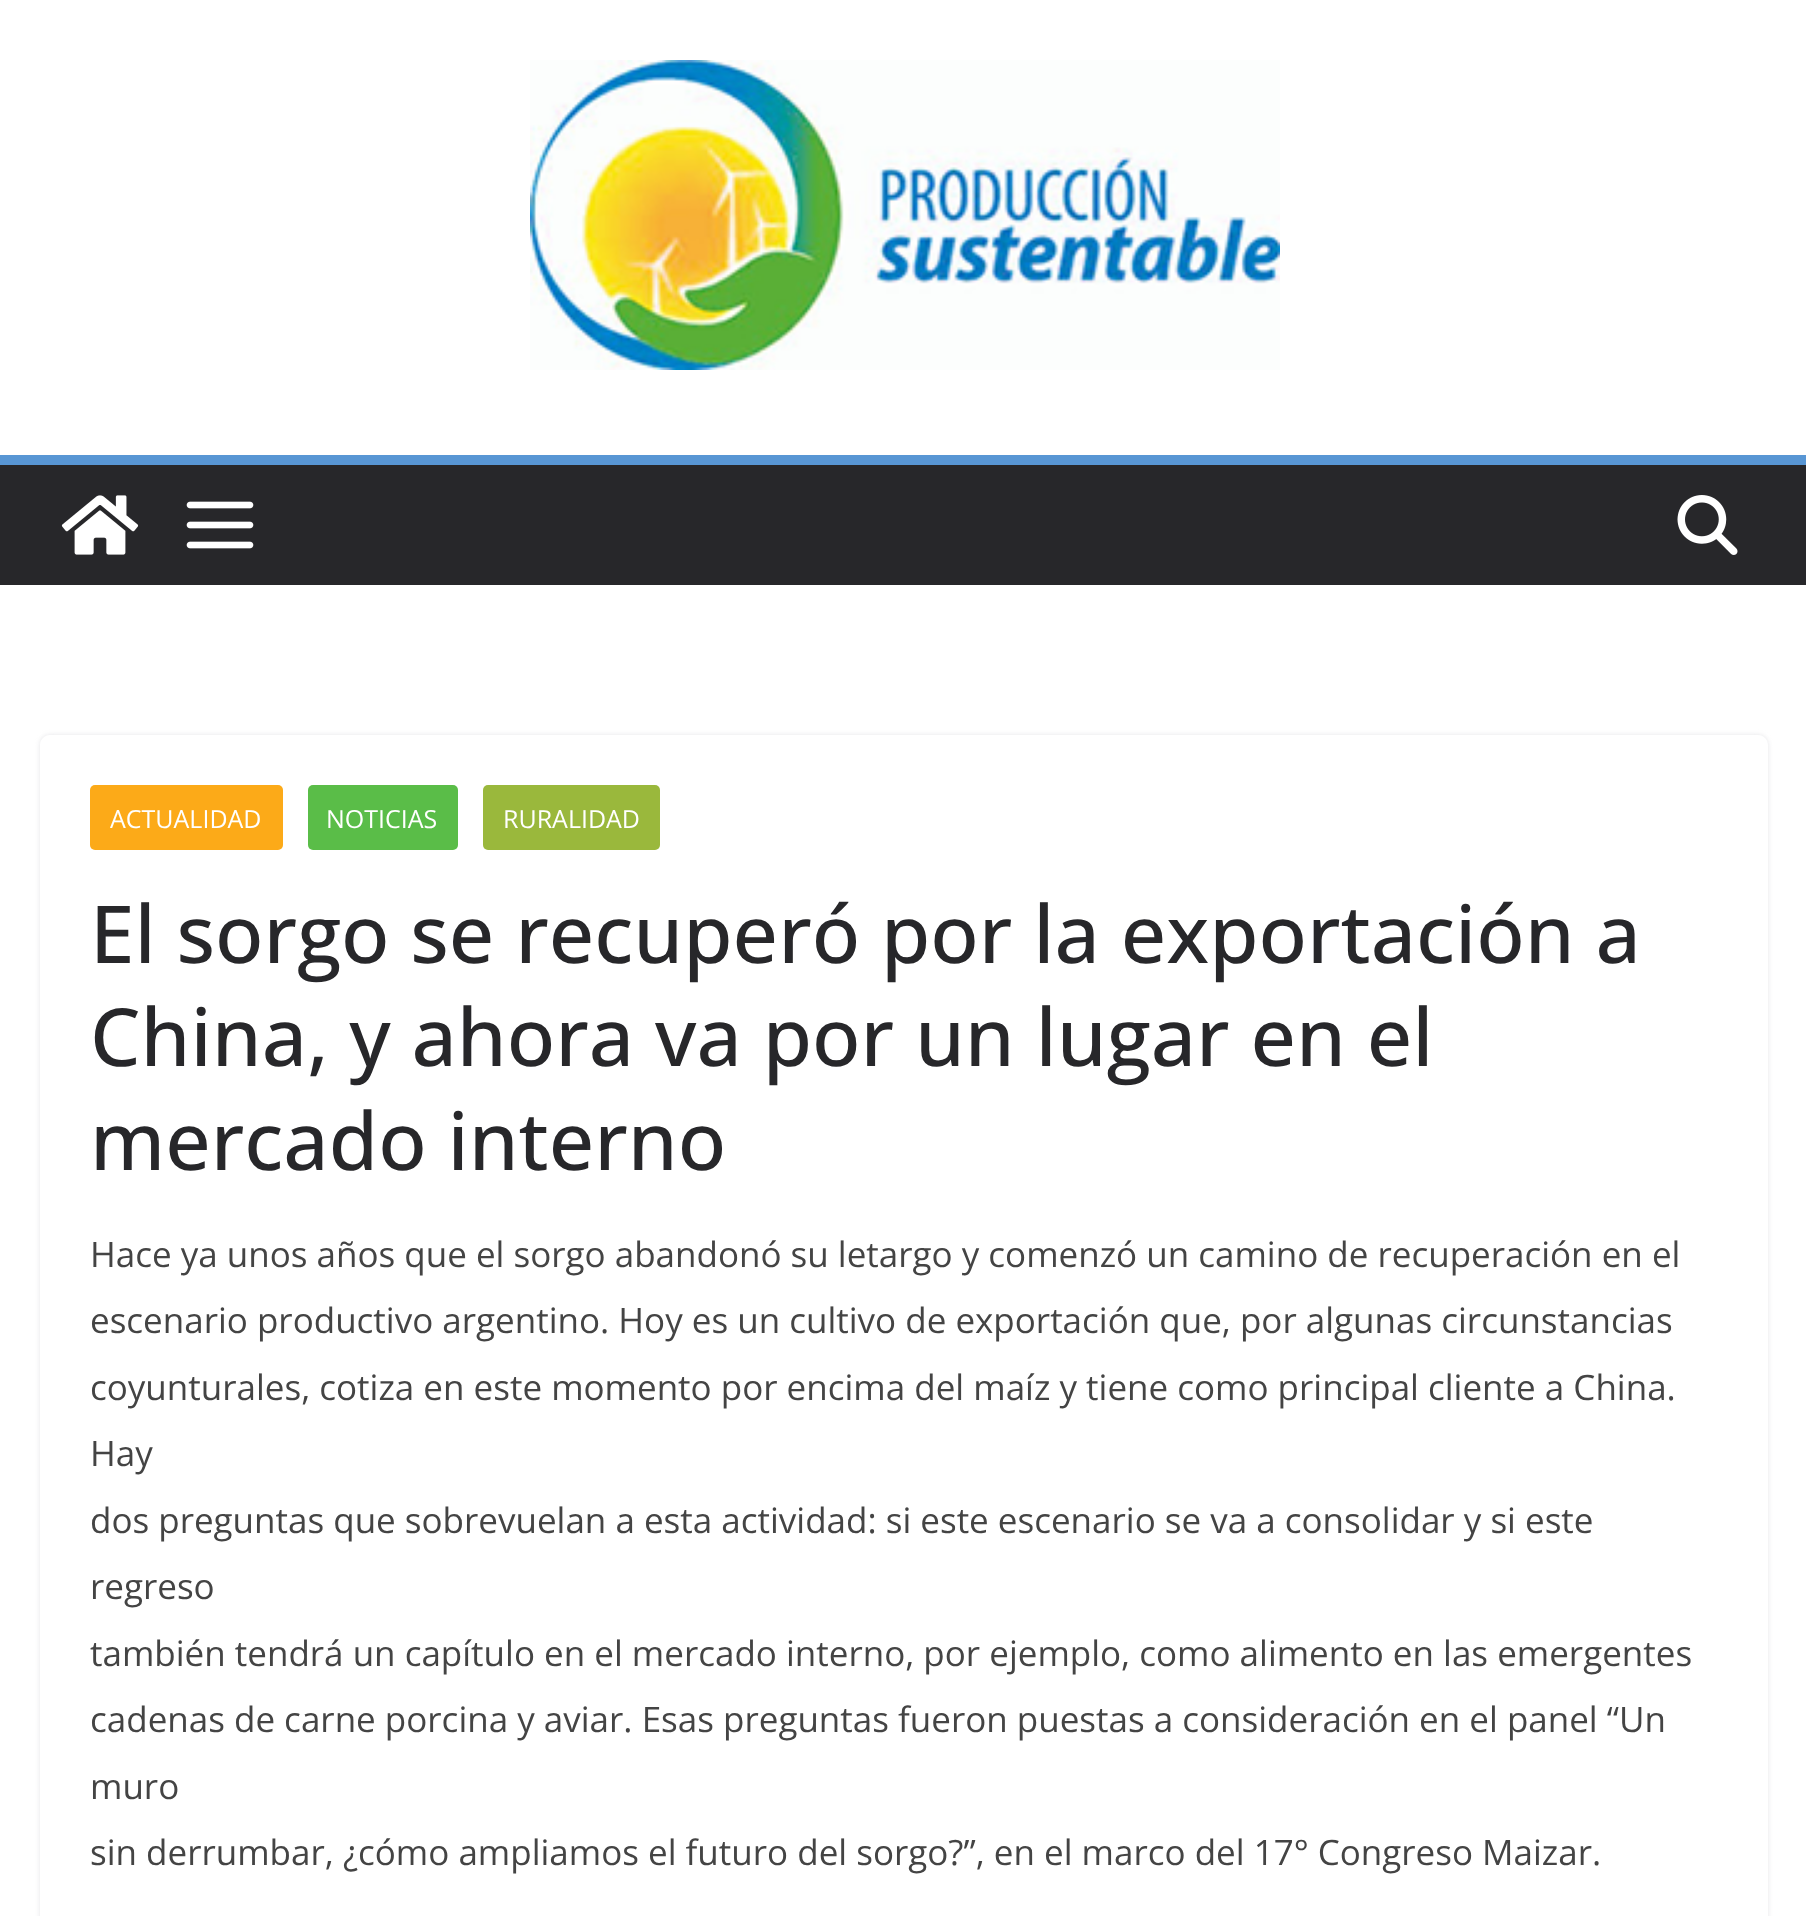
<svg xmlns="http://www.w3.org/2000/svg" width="1806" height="1916">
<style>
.a{font:25px Open Sans;fill:#fff}
.b{font:500 80px Open Sans;fill:#27272a}
.c{font:35px Open Sans;fill:#444}
</style>
<defs>
<clipPath id="clip1"><path d="M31 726h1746v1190h-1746zm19 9h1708c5.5 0 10 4.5 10 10v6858c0 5.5-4.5 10-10 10h-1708c-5.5 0-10-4.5-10-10v-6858c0-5.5 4.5-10 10-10z" clip-rule="evenodd"/></clipPath>
</defs>
<rect width="100%" height="100%" fill="#fff"/>
<image href="1.png" x="530" y="60" width="750" height="310"/>
<path fill="#27272a" d="M0 465h1806v120H0z"/>
<path fill="#5896d4" d="M0 455h1806v10H0z"/>
<image href="2.png" x="61" y="495" width="78" height="60"/>
<image href="3.png" x="186" y="501" width="68" height="48"/>
<image href="4.png" x="1677" y="495" width="61" height="60"/>
<g clip-path="url(#clip1)">
<rect fill="#e4e4e7" filter="blur(2.5px)" x="40" y="735" width="1728" height="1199" rx="10"/>
</g>
<rect fill="#fcaa18" x="90" y="785" width="193" height="65" rx="5"/>
<rect fill="#5abd48" x="308" y="785" width="150" height="65" rx="5"/>
<rect fill="#9ab83c" x="483" y="785" width="177" height="65" rx="5"/>
<text class="a" x="110" y="828">ACTUALIDAD</text>
<text class="a" x="326" y="828">NOTICIAS</text>
<text class="a" x="503" y="828">RURALIDAD</text>
<text class="b" x="90" y="963">El sorgo se recuperó por la exportación a</text>
<text class="b" x="90" y="1066">China, y ahora va por un lugar en el</text>
<text class="b" x="90" y="1170">mercado interno</text>
<text class="c" x="90" y="1267">Hace ya unos años que el sorgo abandonó su letargo y comenzó un camino de recuperación en el</text>
<text class="c" x="90" y="1333">escenario productivo argentino. Hoy es un cultivo de exportación que, por algunas circunstancias</text>
<text class="c" x="90" y="1400">coyunturales, cotiza en este momento por encima del maíz y tiene como principal cliente a China.</text>
<text class="c" x="90" y="1466">Hay</text>
<text class="c" x="90" y="1533">dos preguntas que sobrevuelan a esta actividad: si este escenario se va a consolidar y si este</text>
<text class="c" x="90" y="1599">regreso</text>
<text class="c" x="90" y="1666">también tendrá un capítulo en el mercado interno, por ejemplo, como alimento en las emergentes</text>
<text class="c" x="90" y="1732">cadenas de carne porcina y aviar. Esas preguntas fueron puestas a consideración en el panel “Un</text>
<text class="c" x="90" y="1799">muro</text>
<text class="c" x="90" y="1865">sin derrumbar, ¿cómo ampliamos el futuro del sorgo?”, en el marco del 17° Congreso Maizar.</text>
</svg>
